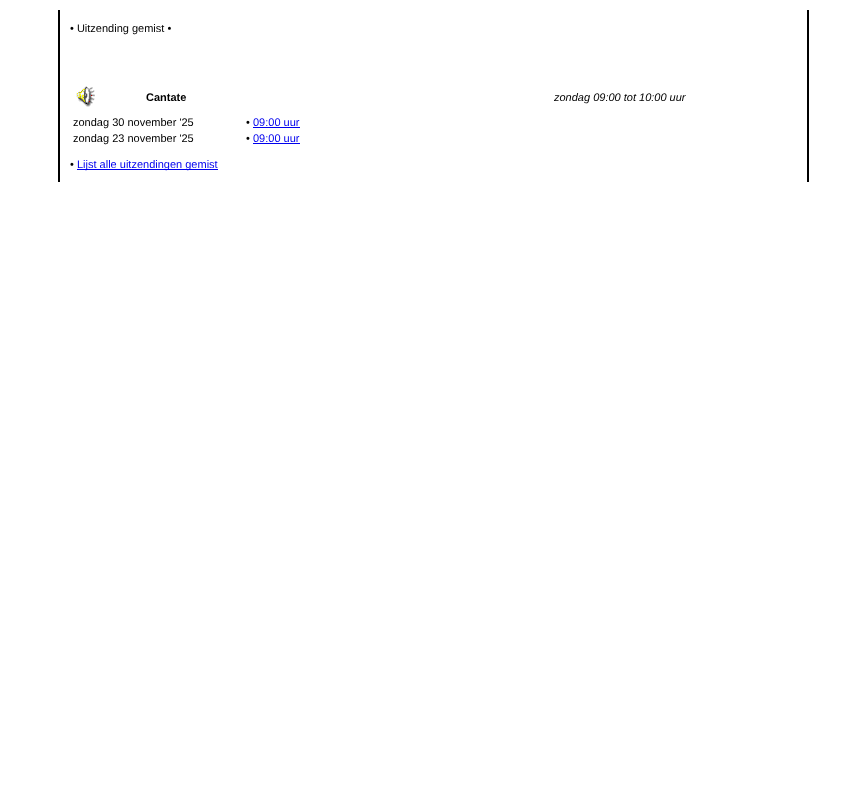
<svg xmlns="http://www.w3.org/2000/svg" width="867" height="801">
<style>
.a{font:11px Liberation Sans;fill:#000}
.b{font:bold 11px Liberation Sans;fill:#000}
.c{font:italic 11px Liberation Sans;fill:#000}
.d{font:11px Liberation Sans;fill:#00e}
</style>
<rect width="100%" height="100%" fill="#fff"/>
<path fill="#000" d="M58 10h2v172H58z"/>
<image href="1.png" x="76" y="86" width="19" height="21"/>
<path fill="#00e" d="M253 127h47v1H253z"/>
<path fill="#00e" d="M253 143h47v1H253z"/>
<path fill="#00e" d="M77 169h141v1H77z"/>
<path fill="#000" d="M807 10h2v172H807z"/>
<text class="a" x="70" y="32">• Uitzending gemist •</text>
<text class="b" x="146" y="101">Cantate</text>
<text class="c" x="554" y="101">zondag 09:00 tot 10:00 uur</text>
<text class="a" x="73" y="126">zondag 30 november '25</text>
<text class="a" x="246" y="126">•</text>
<text class="d" x="253" y="126">09:00 uur</text>
<text class="a" x="73" y="142">zondag 23 november '25</text>
<text class="a" x="246" y="142">•</text>
<text class="d" x="253" y="142">09:00 uur</text>
<text class="a" x="70" y="168">•</text>
<text class="d" x="77" y="168">Lijst alle uitzendingen gemist</text>
</svg>
